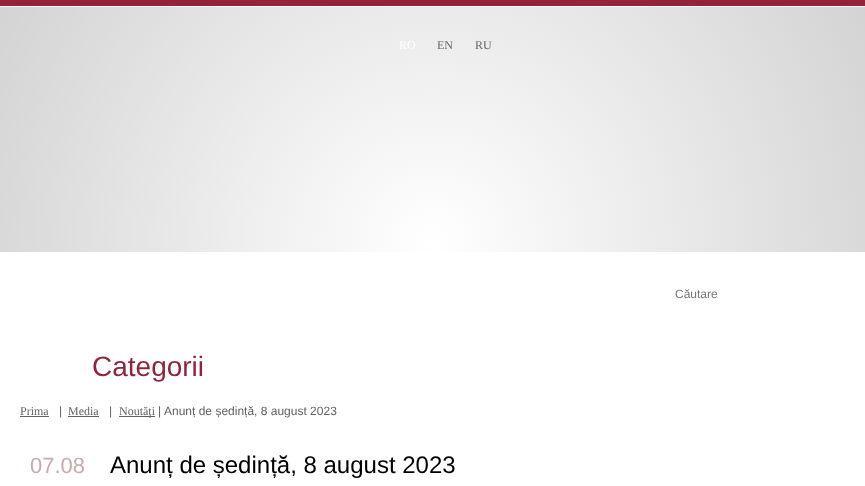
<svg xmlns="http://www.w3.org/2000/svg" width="865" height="486">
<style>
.a{font:12px Liberation Serif;fill:#fff}
.b{font:12px Liberation Serif;fill:#686666}
.c{font:12px Liberation Sans;fill:#757575}
.d{font:28px Liberation Sans;fill:#90243b}
.e{font:12px Liberation Serif;fill:#616161}
.f{font:12px Liberation Sans;fill:#616161}
.g{font:22px Liberation Sans;fill:#c6acac}
.h{font:24px Liberation Sans;fill:#000}
</style>
<defs>
<radialGradient id="g1" gradientUnits="userSpaceOnUse" cx="433" cy="243" r="496"><stop offset="0" stop-color="#fff"/><stop offset="1" stop-color="#d3d3d3"/></radialGradient>
</defs>
<rect width="100%" height="100%" fill="#fff"/>
<path fill="url(#g1)" d="M0 7h865v245H0z"/>
<path fill="#90243b" d="M0 0h865v6H0z"/>
<path fill="#616161" d="M20 416h29v1H20z"/>
<path fill="#616161" d="M68 416h31v1H68z"/>
<path fill="#616161" d="M119 416h36v1H119z"/>
<text class="a" x="399" y="49">RO</text>
<text class="b" x="437" y="49">EN</text>
<text class="b" x="475" y="49">RU</text>
<text class="c" x="675" y="298">Căutare</text>
<text class="d" x="92" y="376">Categorii</text>
<text class="e" x="20" y="415">Prima</text>
<text class="f" x="59" y="415">|</text>
<text class="e" x="68" y="415">Media</text>
<text class="f" x="109" y="415">|</text>
<text class="e" x="119" y="415">Noutăţi</text>
<text class="f" x="158" y="415">|</text>
<text class="f" x="164" y="415">Anunț de ședință, 8 august 2023</text>
<text class="g" x="30" y="473">07.08</text>
<text class="h" x="110" y="473">Anunț de ședință, 8 august 2023</text>
</svg>
